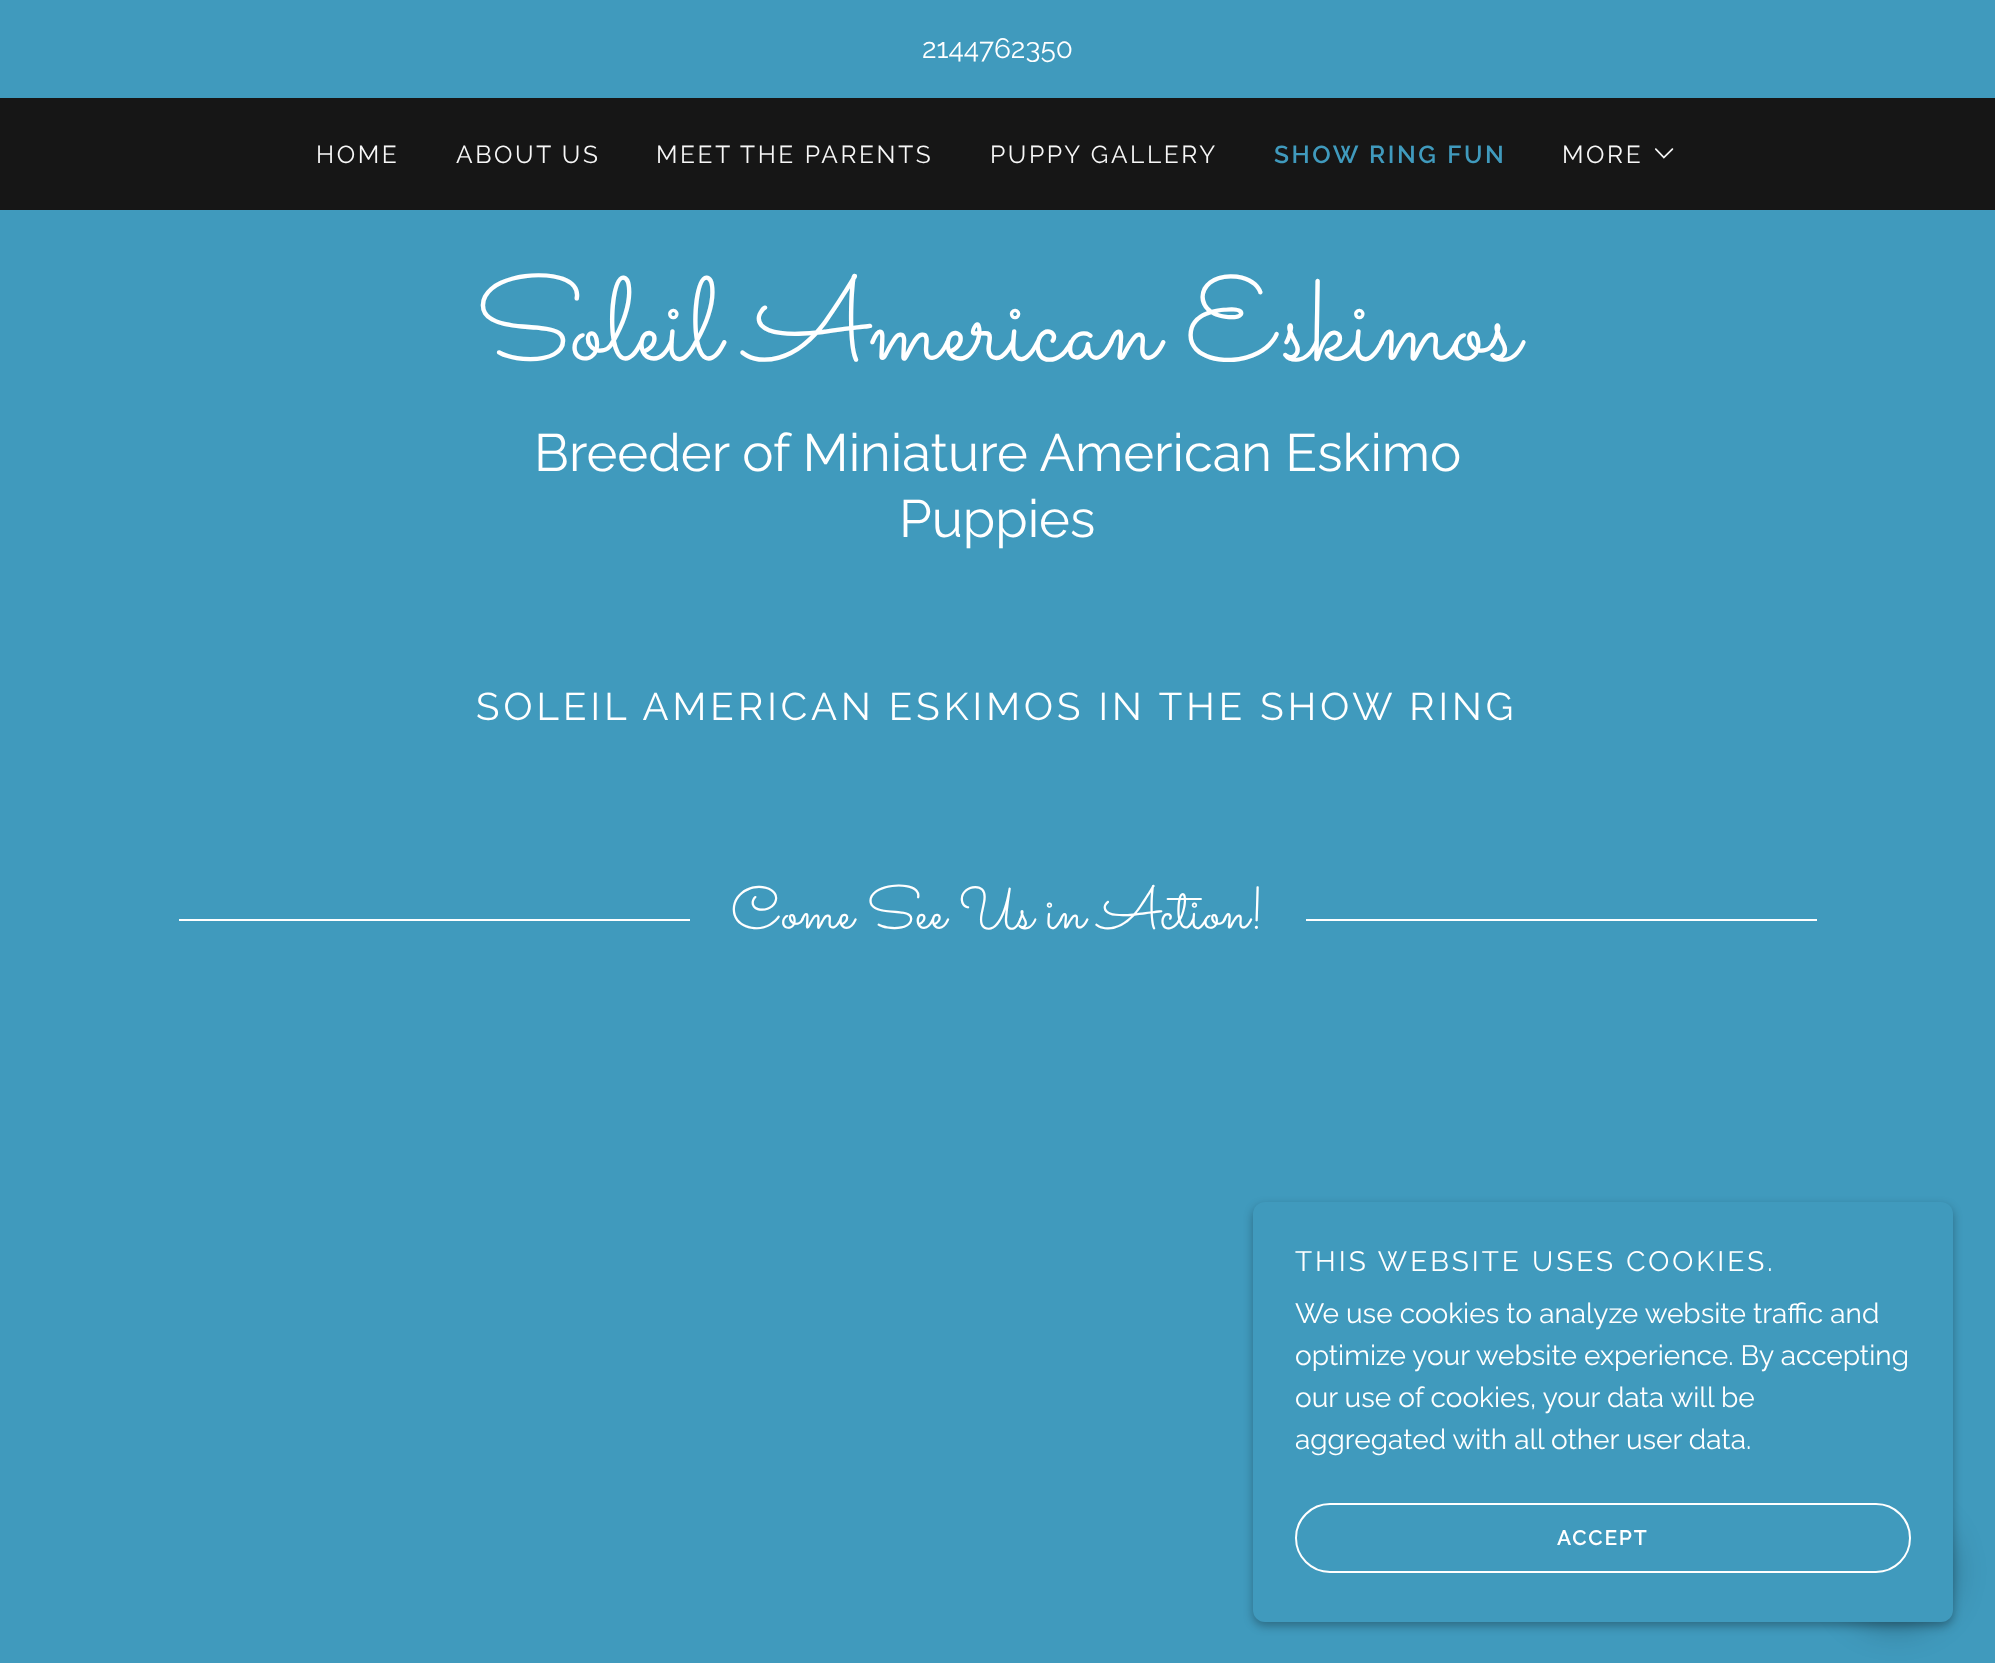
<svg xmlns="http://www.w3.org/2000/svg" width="1995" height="1663">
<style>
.a{font:28px Raleway;fill:#fff}
.b{font:24.5px Raleway;letter-spacing:2.6px;fill:#f7f7f7}
.c{font:600 24.5px Raleway;letter-spacing:2.6px;fill:#409abd}
.d{font:117.25px Sacramento;fill:#fff}
.e{font:52.5px Raleway;fill:#fff}
.f{font:38.5px Raleway;letter-spacing:4.1px;fill:#fff}
.g{font:59.5px Sacramento;fill:#fff}
.h{font:28px Raleway;letter-spacing:3px;fill:#fff}
.i{font:600 21px Raleway;letter-spacing:1.75px;fill:#fff}
</style>
<rect width="100%" height="100%" fill="#409abd"/>
<path fill="#161616" d="M0 98h1995v112H0z"/>
<image href="1.png" x="1655" y="148" width="19" height="11"/>
<path fill="#fff" d="M179 919h511v2H179z"/>
<path fill="#fff" d="M1306 919h511v2H1306z"/>
<rect fill="#0000004d" filter="blur(5px)" x="1253" y="1206" width="700" height="420" rx="12"/>
<rect fill="#00000040" filter="blur(16px)" x="1839" y="1514" width="114" height="114" rx="57"/>
<rect fill="#409abd" x="1253" y="1202" width="700" height="420" rx="12"/>
<rect fill="none" stroke="#fff" stroke-width="2" x="1296" y="1504" width="614" height="68" rx="34"/>
<text class="a" x="922" y="58">2144762350</text>
<text class="b" x="316" y="163">HOME</text>
<text class="b" x="456" y="163">ABOUT US</text>
<text class="b" x="656" y="163">MEET THE PARENTS</text>
<text class="b" x="990" y="163">PUPPY GALLERY</text>
<text class="c" x="1274" y="163">SHOW RING FUN</text>
<text class="b" x="1562" y="163">MORE</text>
<text class="d" x="475" y="359">Soleil American Eskimos</text>
<text class="e" x="534" y="471">Breeder of Miniature American Eskimo</text>
<text class="e" x="899" y="537">Puppies</text>
<text class="f" x="476" y="720">SOLEIL AMERICAN ESKIMOS IN THE SHOW RING</text>
<text class="g" x="731" y="928">Come See Us in Action!</text>
<text class="h" x="1295" y="1271">THIS WEBSITE USES COOKIES.</text>
<text class="a" x="1295" y="1323">We use cookies to analyze website traffic and</text>
<text class="a" x="1295" y="1365">optimize your website experience. By accepting</text>
<text class="a" x="1295" y="1407">our use of cookies, your data will be</text>
<text class="a" x="1295" y="1449">aggregated with all other user data.</text>
<text class="i" x="1557" y="1545">ACCEPT</text>
</svg>
